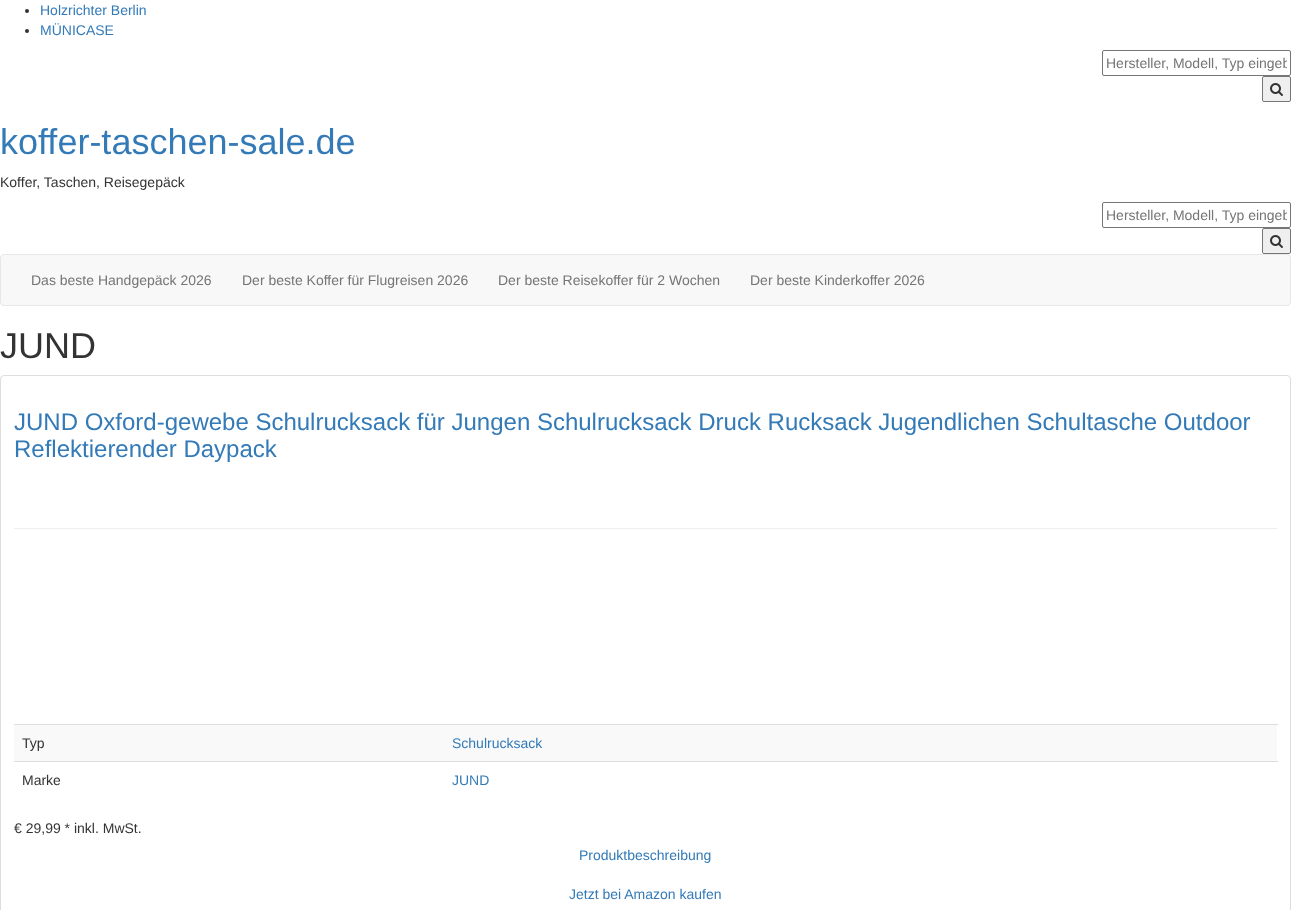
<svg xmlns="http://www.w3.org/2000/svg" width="1291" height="910">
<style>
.a{font:14px Liberation Sans;fill:#337ab7}
.b{font:14px Liberation Sans;fill:#757575}
.c{font:36px Liberation Sans;fill:#337ab7}
.d{font:14px Liberation Sans;fill:#333}
.e{font:36px Liberation Sans;fill:#333}
.f{font:24px Liberation Sans;fill:#337ab7}
</style>
<defs>
<clipPath id="clip1"><path d="M1106 55h181v16H1106z"/></clipPath>
<clipPath id="clip2"><path d="M1106 207h181v16H1106z"/></clipPath>
</defs>
<rect width="100%" height="100%" fill="#fff"/>
<circle fill="#333" cx="27" cy="11" r="2"/>
<circle fill="#333" cx="27" cy="31" r="2"/>
<rect fill="none" stroke="#767676" x="1102.5" y="50.5" width="188" height="25" rx="1.5"/>
<rect fill="#efefef" stroke="#767676" x="1262.5" y="76.5" width="28" height="25" rx="1.5"/>
<image href="1.png" x="1270" y="83" width="13" height="13"/>
<rect fill="none" stroke="#767676" x="1102.5" y="202.5" width="188" height="25" rx="1.5"/>
<rect fill="#efefef" stroke="#767676" x="1262.5" y="228.5" width="28" height="25" rx="1.5"/>
<image href="1.png" x="1270" y="235" width="13" height="13"/>
<rect fill="#f8f8f8" stroke="#e7e7e7" x="0.5" y="254.5" width="1290" height="51" rx="3.5"/>
<rect fill="none" stroke="#ddd" x="0.5" y="375.5" width="1290" height="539" rx="3.5"/>
<path fill="#eee" d="M14 528h1263v1H14z"/>
<path fill="#f9f9f9" d="M14 725h1263v36H14z"/>
<path fill="#ddd" d="M14 724h1264v1H14z"/>
<path fill="#ddd" d="M14 761h1264v1H14z"/>
<text class="a" x="40" y="15">Holzrichter Berlin</text>
<text class="a" x="40" y="35">MÜNICASE</text>
<g clip-path="url(#clip1)">
<text class="b" x="1106" y="68">Hersteller, Modell, Typ eingeb</text>
</g>
<text class="c" x="0" y="154">koffer-taschen-sale.de</text>
<text class="d" x="0" y="187">Koffer, Taschen, Reisegepäck</text>
<g clip-path="url(#clip2)">
<text class="b" x="1106" y="220">Hersteller, Modell, Typ eingeb</text>
</g>
<text class="b" x="31" y="285">Das beste Handgepäck 2026</text>
<text class="b" x="242" y="285">Der beste Koffer für Flugreisen 2026</text>
<text class="b" x="498" y="285">Der beste Reisekoffer für 2 Wochen</text>
<text class="b" x="750" y="285">Der beste Kinderkoffer 2026</text>
<text class="e" x="0" y="358">JUND</text>
<text class="f" x="14" y="430">JUND Oxford-gewebe Schulrucksack für Jungen Schulrucksack Druck Rucksack Jugendlichen Schultasche Outdoor</text>
<text class="f" x="14" y="457">Reflektierender Daypack</text>
<text class="d" x="22" y="748">Typ</text>
<text class="a" x="452" y="748">Schulrucksack</text>
<text class="d" x="22" y="785">Marke</text>
<text class="a" x="452" y="785">JUND</text>
<text class="d" x="14" y="833">€ 29,99 * inkl. MwSt.</text>
<text class="a" x="579" y="860">Produktbeschreibung</text>
<text class="a" x="569" y="899">Jetzt bei Amazon kaufen</text>
</svg>
